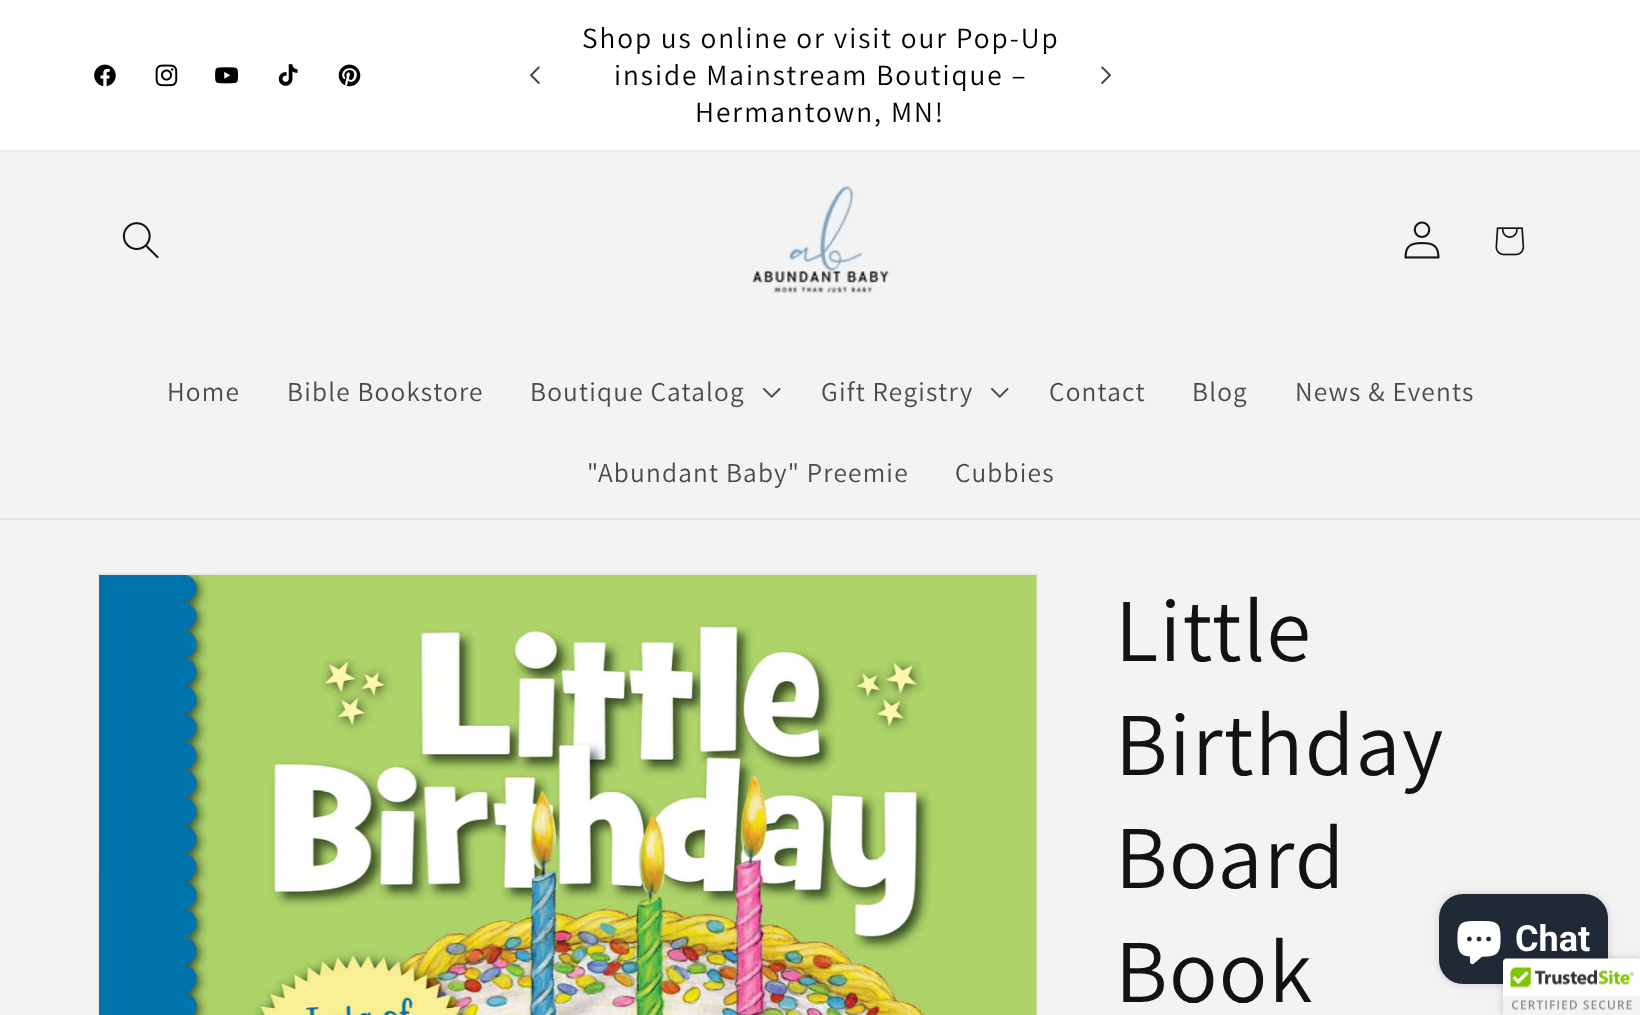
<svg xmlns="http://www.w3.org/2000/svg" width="1640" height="1015">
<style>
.a{font:29.25px Assistant;letter-spacing:1.95px;fill:#000}
.b{font:27.25px Assistant;letter-spacing:1.2px;fill:#4a4a4a}
.c{font:90px Assistant;letter-spacing:1.25px;fill:#121212}
.d{font:bold 36px Roboto;fill:#fff}
</style>
<rect width="100%" height="100%" fill="#fff"/>
<path fill="#ebebeb" d="M0 150h1640v2H0z"/>
<image href="1.png" x="94" y="64" width="22" height="23"/>
<image href="2.png" x="155" y="64" width="23" height="23"/>
<image href="3.png" x="215" y="67" width="23" height="17"/>
<image href="4.png" x="278" y="64" width="20" height="22"/>
<image href="5.png" x="338" y="64" width="23" height="23"/>
<image href="6.png" x="530" y="66" width="10" height="18"/>
<image href="7.png" x="1101" y="66" width="10" height="18"/>
<path fill="#f3f3f3" d="M0 152h1640v366H0z"/>
<path fill="#e1e1e1" d="M0 518h1640v2H0z"/>
<image href="8.png" x="122" y="222" width="37" height="37"/>
<image href="9.png" x="752" y="185" width="137" height="108"/>
<image href="10.png" x="1404" y="221" width="36" height="38"/>
<image href="11.png" x="1495" y="227" width="30" height="29"/>
<image href="12.png" x="763" y="388" width="18" height="10"/>
<image href="12.png" x="991" y="388" width="18" height="10"/>
<path fill="#f3f3f3" d="M0 520h1640v495H0z"/>
<path fill="none" stroke="#e8e8e8" stroke-width="2" d="M99 574h938v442H99z"/>
<image href="13.png" x="99" y="575" width="938" height="440"/>
<rect fill="#00000026" filter="blur(4px)" x="1439" y="894" width="169" height="90" rx="24"/>
<rect fill="#202a36" x="1439" y="894" width="169" height="90" rx="24"/>
<image href="14.png" x="1457" y="921" width="44" height="44"/>
<rect fill="#00000033" filter="blur(4px)" x="1503" y="959" width="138" height="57" rx="3"/>
<image href="15.png" x="1503" y="958" width="137" height="57"/>
<text class="a" x="582" y="48">Shop us online or visit our Pop-Up</text>
<text class="a" x="614" y="85">inside Mainstream Boutique –</text>
<text class="a" x="695" y="122">Hermantown, MN!</text>
<text class="b" x="167" y="401">Home</text>
<text class="b" x="287" y="401">Bible Bookstore</text>
<text class="b" x="530" y="401">Boutique Catalog</text>
<text class="b" x="821" y="401">Gift Registry</text>
<text class="b" x="1049" y="401">Contact</text>
<text class="b" x="1192" y="401">Blog</text>
<text class="b" x="1295" y="401">News &amp; Events</text>
<text class="b" x="587" y="482">"Abundant Baby" Preemie</text>
<text class="b" x="955" y="482">Cubbies</text>
<text class="c" x="1115" y="661">Little</text>
<text class="c" x="1115" y="775">Birthday</text>
<text class="c" x="1115" y="888">Board</text>
<text class="c" x="1115" y="1002">Book</text>
<text class="d" x="1515" y="951">Chat</text>
</svg>
